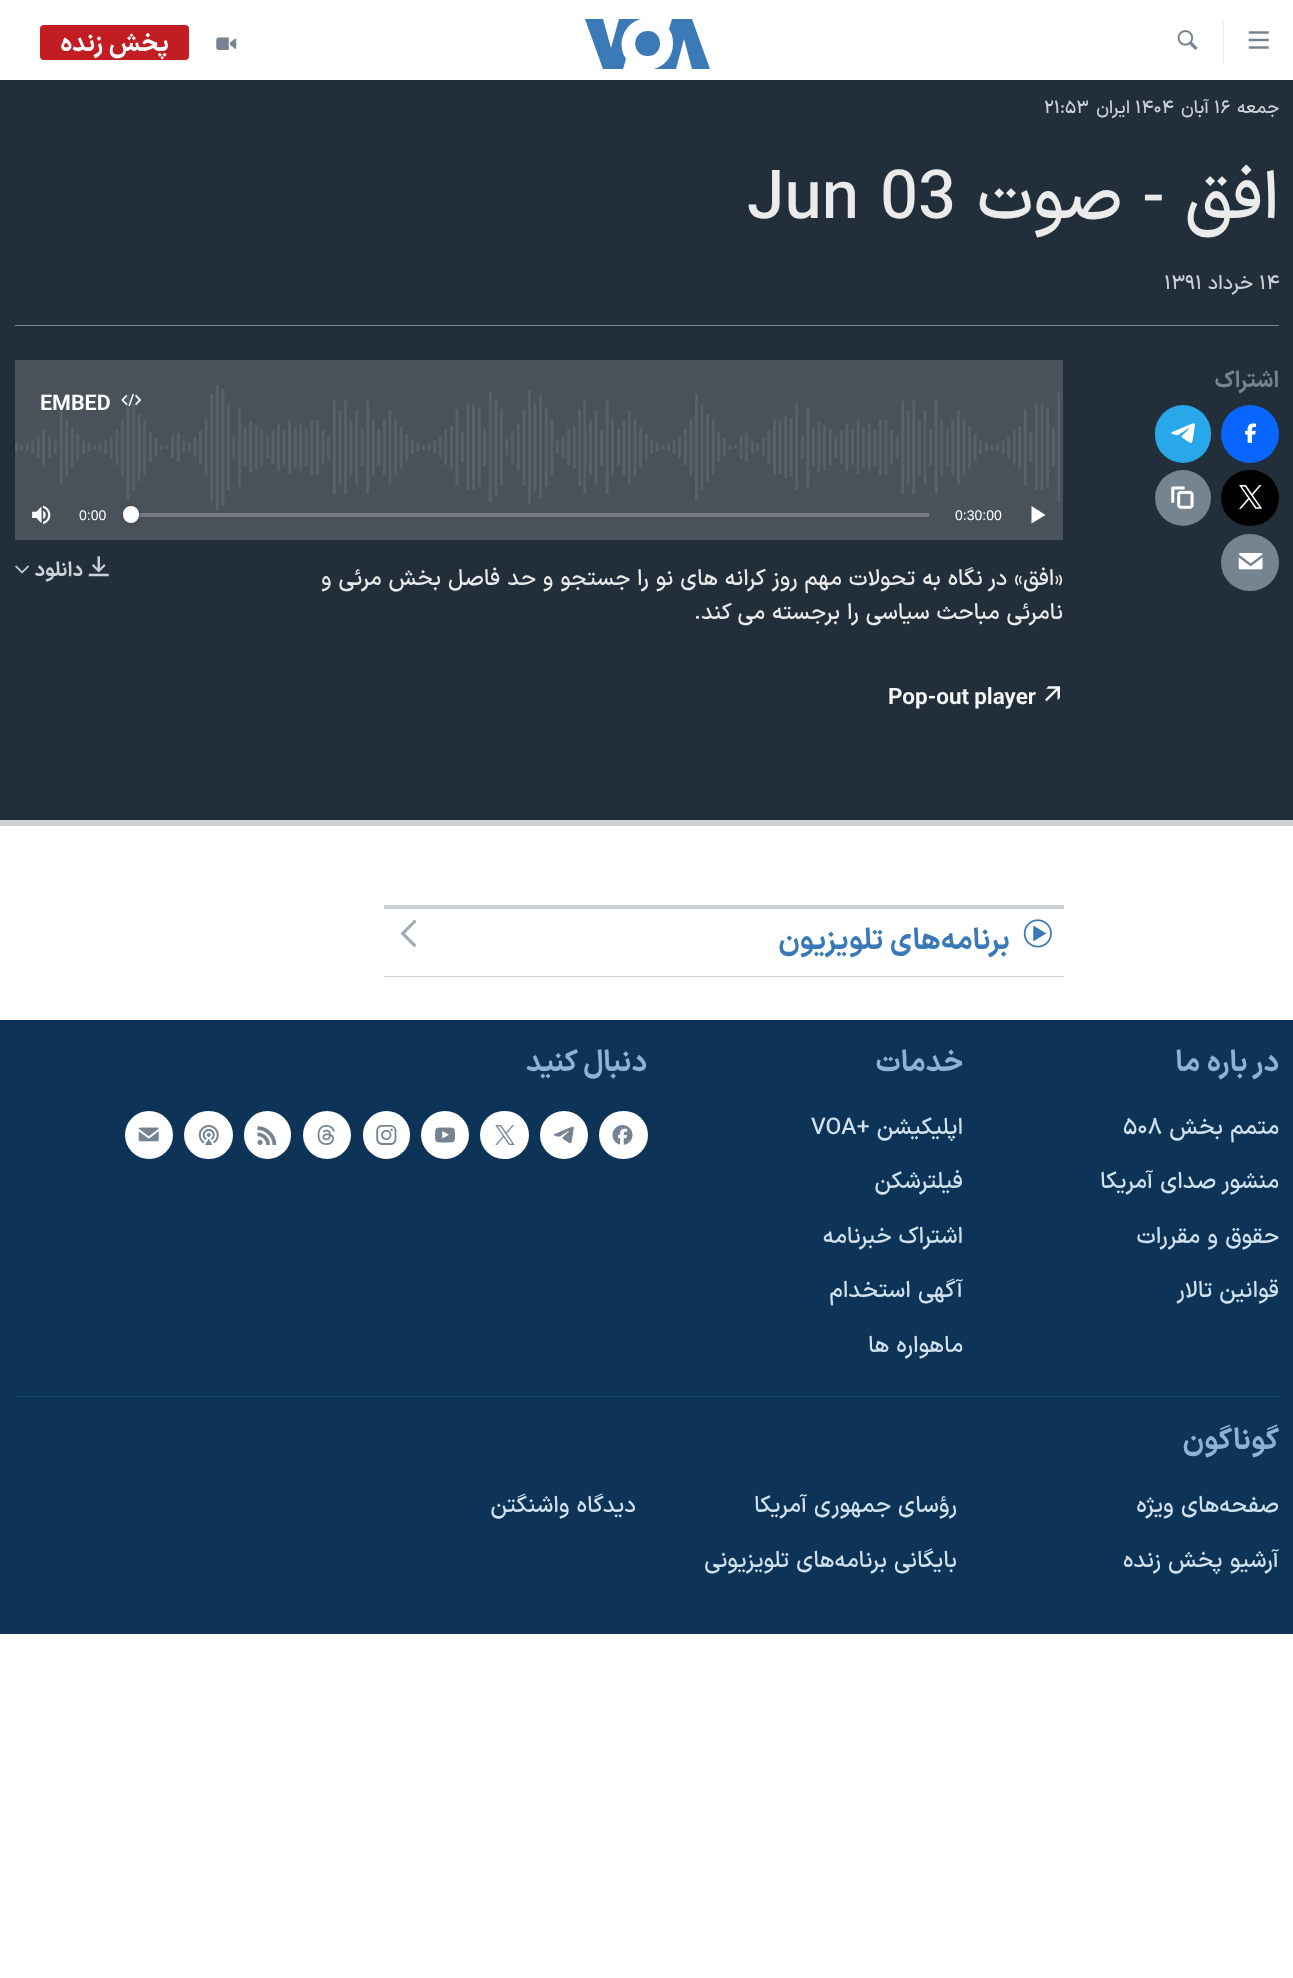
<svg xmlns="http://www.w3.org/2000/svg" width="1293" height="1978">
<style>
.a{font:bold 25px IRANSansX;direction:rtl;fill:#fff}
.b{font:500 18px IRANSansX;direction:rtl;fill:#cbd1d6}
.c{font:500 18px IRANSansX;fill:#cbd1d6}
.d{font:500 67.5px IRANSansX;direction:rtl;fill:#ebebeb}
.e{font:500 67.5px IRANSansX;fill:#ebebeb}
.f{font:500 20px IRANSansX;fill:#cbd1d6}
.g{font:500 20px IRANSansX;direction:rtl;fill:#cbd1d6}
.h{font:bold 22.5px IRANSansX;direction:rtl;fill:#768492}
.i{font:bold 21.5px IRANSansX;fill:#fff}
.j{font:14px Liberation Sans;fill:#fff}
.k{font:500 22.5px IRANSansX;direction:rtl;fill:#ebebeb}
.l{font:bold 20px IRANSansX;direction:rtl;fill:#cbd1d6}
.m{font:bold 22.5px IRANSansX;fill:#f6f7f8}
.n{font:bold 29.5px IRANSansX;direction:rtl;fill:#3a79b7}
.o{font:bold 29.5px IRANSansX;direction:rtl;fill:#8db3d4}
.p{font:500 23px IRANSansX;direction:rtl;fill:#d1e1ee}
.q{font:500 23px IRANSansX;fill:#d1e1ee}
</style>
<rect width="100%" height="100%" fill="#fff"/>
<image href="1.png" x="1248" y="31" width="21" height="18"/>
<path fill="#ebebeb" d="M1223 21h1v44H1223z"/>
<image href="2.png" x="1177" y="30" width="21" height="20"/>
<path fill="#3b79b7" d="M626 59l-3 10h-20l-18-50h18l8 29l8-29h22c-17 4-25 25-15 40zm22-28c-17 0-17 25 0 25c16 0 16-25 0-25zm25 13c0 12-8 22-19 25h22l8-30l8 30h18l-18-50h-20l-3 10c3 4 4 9 4 15z"/>
<image href="3.png" x="216" y="37" width="21" height="13"/>
<rect fill="#c11d22" x="40" y="25" width="149" height="35" rx="4"/>
<path fill="#222f3a" d="M0 80h1293v740H0z"/>
<path fill="#cbd1d6" d="M0 820h1293v6H0z"/>
<path fill="#768492" d="M15 325h1264v1H15z"/>
<circle fill="#0866ff" cx="1250" cy="434" r="29"/>
<image href="4.png" x="1245" y="423" width="12" height="20"/>
<rect fill="#28a8ea" x="1155" y="405" width="56" height="58" rx="28"/>
<image href="5.png" x="1171" y="423" width="24" height="20"/>
<rect fill="#000" x="1221" y="470" width="58" height="56" rx="28"/>
<image href="6.png" x="1239" y="485" width="24" height="24"/>
<circle fill="#768492" cx="1183" cy="498" r="28"/>
<image href="7.png" x="1171" y="486" width="23" height="23"/>
<rect fill="#768492" x="1221" y="534" width="58" height="57" rx="28.5"/>
<image href="8.png" x="1238" y="553" width="25" height="17"/>
<path fill="#49525a" d="M15 360h1048v180H15z"/>
<image href="9.png" x="15" y="385" width="1045" height="125"/>
<image href="10.png" x="121" y="393" width="21" height="14"/>
<path fill="#fff" d="M1031.5 523.5l14-8.5l-14-9z"/>
<path fill="#777d83" d="M130 513h799v4H130z"/>
<rect fill="#414144" filter="blur(2px)" x="123" y="506" width="16" height="17" rx="8"/>
<rect fill="#fff" x="123" y="506" width="16" height="17" rx="8"/>
<image href="11.png" x="32" y="505" width="19" height="19"/>
<image href="12.png" x="88" y="556" width="21" height="21"/>
<image href="13.png" x="15" y="565" width="15" height="9"/>
<image href="14.png" x="1045" y="686" width="15" height="16"/>
<path fill="#cbd1d6" d="M384 905h680v4H384z"/>
<path fill="#cbd1d6" d="M384 976h680v1H384z"/>
<image href="15.png" x="1023" y="919" width="29" height="29"/>
<path fill="#a1aab4" d="M414.5 919.5l-14 14l14 14l2-2.5l-11.5-11.5l11.5-12z"/>
<path fill="#0d3456" d="M0 1020h1293v614H0z"/>
<rect fill="#fff" x="599" y="1111" width="49" height="48" rx="24"/>
<image href="16.png" x="612" y="1125" width="21" height="20"/>
<circle fill="#fff" cx="564" cy="1135" r="24"/>
<image href="17.png" x="553" y="1126" width="21" height="18"/>
<rect fill="#fff" x="480" y="1111" width="49" height="48" rx="24"/>
<image href="18.png" x="495" y="1125" width="20" height="20"/>
<circle fill="#fff" cx="445" cy="1135" r="24"/>
<image href="19.png" x="435" y="1127" width="20" height="16"/>
<rect fill="#fff" x="363" y="1111" width="47" height="48" rx="23.5"/>
<image href="20.png" x="376" y="1125" width="21" height="20"/>
<circle fill="#fff" cx="327" cy="1135" r="24"/>
<image href="21.png" x="317" y="1125" width="18" height="20"/>
<rect fill="#fff" x="244" y="1111" width="47" height="48" rx="23.5"/>
<image href="22.png" x="257" y="1126" width="20" height="19"/>
<rect fill="#fff" x="184" y="1111" width="49" height="48" rx="24"/>
<image href="23.png" x="198" y="1125" width="21" height="20"/>
<circle fill="#fff" cx="149" cy="1135" r="24"/>
<image href="24.png" x="138" y="1127" width="21" height="15"/>
<path fill="#134976" d="M15 1396h1264v1H15z"/>
<text class="a" x="169" y="51">پخش زنده</text>
<text class="b" x="1279" y="113">جمعه</text>
<text class="c" x="1214" y="113">۱۶</text>
<text class="b" x="1209" y="113">آبان</text>
<text class="c" x="1135" y="113">۱۴۰۴</text>
<text class="b" x="1130" y="113">ایران</text>
<text class="c" x="1044" y="113">۲۱:۵۳</text>
<text class="d" x="1279" y="218">افق - صوت</text>
<text class="e" x="747" y="218">Jun 03</text>
<text class="f" x="1259" y="289">۱۴</text>
<text class="g" x="1253" y="289">خرداد</text>
<text class="f" x="1164" y="289">۱۳۹۱</text>
<text class="h" x="1279" y="387">اشتراک</text>
<text class="i" x="40" y="410">EMBED</text>
<text class="j" x="955" y="520">0:30:00</text>
<text class="j" x="79" y="520">0:00</text>
<text class="k" x="1063" y="585">«افق» در نگاه به تحولات مهم روز کرانه های نو را جستجو و حد فاصل بخش مرئی و</text>
<text class="k" x="1063" y="619">نامرئی مباحث سیاسی را برجسته می کند.</text>
<text class="l" x="83" y="576">دانلود</text>
<text class="m" x="888" y="704">Pop-out player</text>
<text class="n" x="1010" y="949">برنامه‌های تلویزیون</text>
<text class="o" x="1279" y="1071">در باره ما</text>
<text class="p" x="1279" y="1134">متمم بخش</text>
<text class="q" x="1123" y="1134">۵۰۸</text>
<text class="p" x="1279" y="1188">منشور صدای آمریکا</text>
<text class="p" x="1279" y="1243">حقوق و مقررات</text>
<text class="p" x="1279" y="1297">قوانین تالار</text>
<text class="o" x="963" y="1071">خدمات</text>
<text class="p" x="963" y="1134">اپلیکیشن +</text>
<text class="q" x="811" y="1134">VOA</text>
<text class="p" x="963" y="1188">فیلترشکن</text>
<text class="p" x="963" y="1243">اشتراک خبرنامه</text>
<text class="p" x="963" y="1297">آگهی استخدام</text>
<text class="p" x="963" y="1352">ماهواره ها</text>
<text class="o" x="647" y="1071">دنبال کنید</text>
<text class="o" x="1279" y="1449">گوناگون</text>
<text class="p" x="1279" y="1512">صفحه‌های ویژه</text>
<text class="p" x="957" y="1512">رؤسای جمهوری آمریکا</text>
<text class="p" x="636" y="1512">دیدگاه‌ واشنگتن</text>
<text class="p" x="1279" y="1567">آرشیو پخش زنده</text>
<text class="p" x="957" y="1567">بایگانی برنامه‌های تلویزیونی</text>
</svg>
